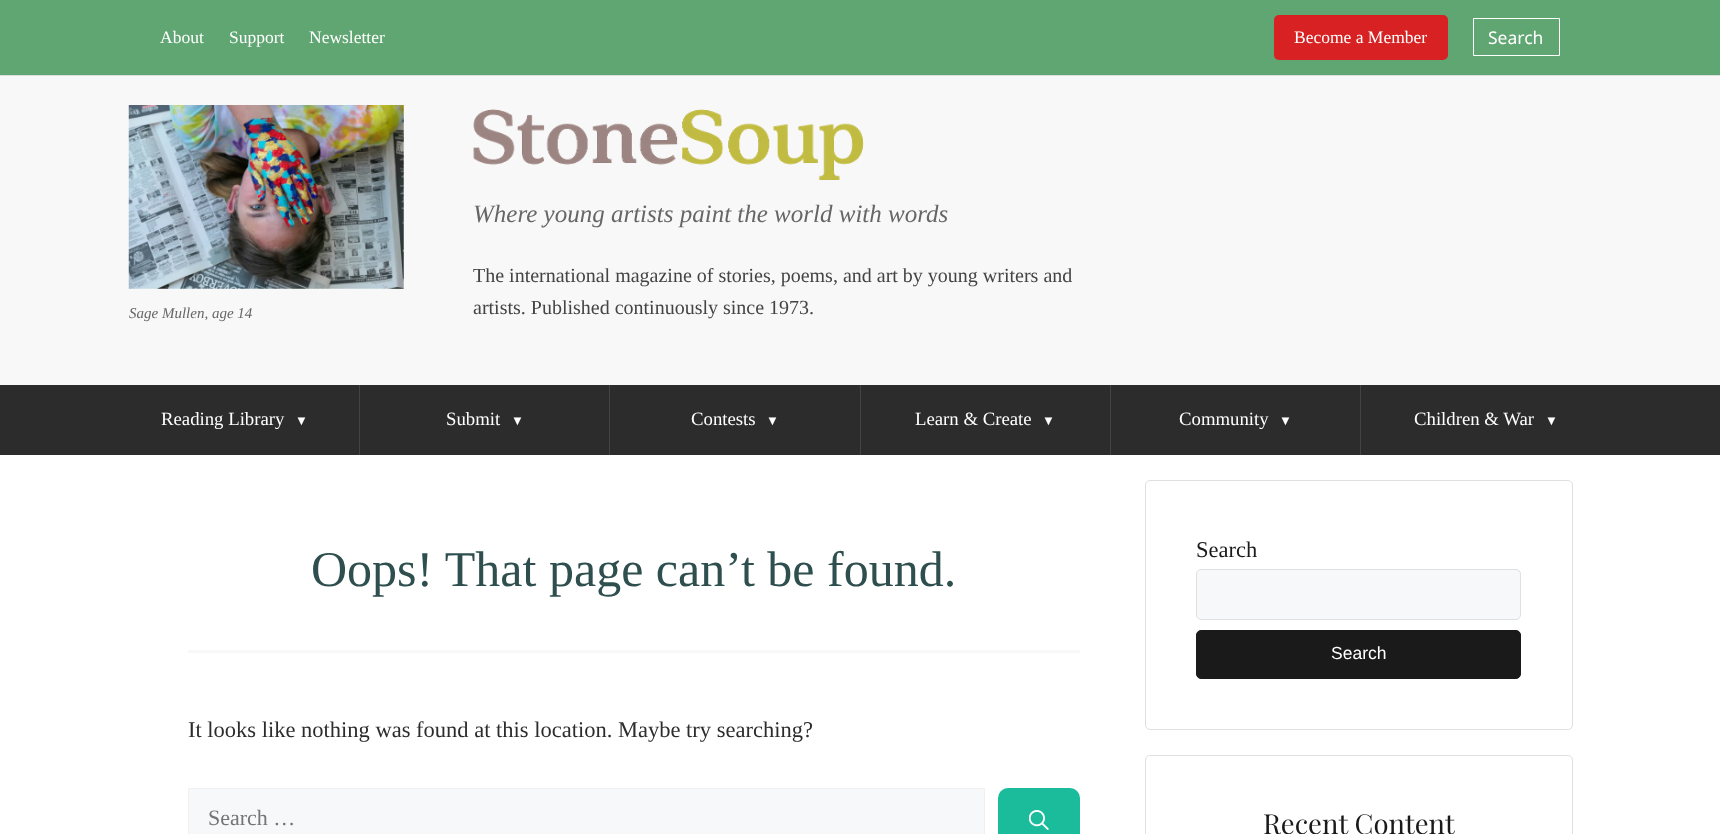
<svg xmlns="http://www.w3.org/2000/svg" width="1720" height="834">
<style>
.a{font:17.5px Liberation Serif;fill:#fff}
.b{font:17.5px Noto Sans;fill:#fff}
.c{font:italic 15px Liberation Serif;fill:#666}
.d{font:italic 25px Liberation Serif;fill:#666}
.e{font:20px Liberation Serif;fill:#444}
.f{font:18.75px Liberation Serif;fill:#fff}
.g{font:13px Liberation Serif;fill:#fff}
.h{font:50px Liberation Serif;fill:#2f4f4f}
.i{font:22.5px Liberation Serif;fill:#2c2c2c}
.j{font:22px Liberation Serif;fill:#757575}
.k{font:22.5px Liberation Serif;fill:#1a1a1a}
.l{font:17.5px Liberation Sans;fill:#fff}
.m{font:27.5px Playfair Display;fill:#1a1a1a}
</style>
<rect width="100%" height="100%" fill="#fff"/>
<path fill="#60a672" d="M0 0h1720v75H0z"/>
<path fill="#ddd" d="M0 75h1720v1H0z"/>
<rect fill="#d72123" x="1274" y="15" width="174" height="45" rx="5"/>
<path fill="none" stroke="#fff" d="M1473.5 18.5h86v37H1473.5z"/>
<path fill="#f8f8f8" d="M0 76h1720v309H0z"/>
<image href="1.png" x="128" y="105" width="276" height="184"/>
<image href="2.png" x="473" y="109" width="391" height="71"/>
<path fill="#2c2c2c" d="M0 385h1720v70H0z"/>
<path fill="#444" d="M359 385h1v70H359z"/>
<path fill="#444" d="M609 385h1v70H609z"/>
<path fill="#444" d="M860 385h1v70H860z"/>
<path fill="#444" d="M1110 385h1v70H1110z"/>
<path fill="#444" d="M1360 385h1v70H1360z"/>
<path fill="#f8f8f8" d="M188 650h892v3H188z"/>
<path fill="#f7f8f9" stroke="#f0f0f0" d="M188.5 788.5h796v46H188.5z"/>
<rect fill="#1abc9c" x="998" y="788" width="82" height="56" rx="10"/>
<image href="3.png" x="1029" y="810" width="20" height="20"/>
<rect fill="none" stroke="#e0e0e0" x="1145.5" y="480.5" width="427" height="249" rx="4.5"/>
<rect fill="#f7f8f9" stroke="#e0e0e0" x="1196.5" y="569.5" width="324" height="50" rx="4.5"/>
<rect fill="#1a1a1a" stroke="#1a1a1a" x="1196.5" y="630.5" width="324" height="48" rx="4.5"/>
<rect fill="none" stroke="#e0e0e0" x="1145.5" y="755.5" width="427" height="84" rx="4.5"/>
<text class="a" x="160" y="43">About</text>
<text class="a" x="229" y="43">Support</text>
<text class="a" x="309" y="43">Newsletter</text>
<text class="a" x="1294" y="43">Become a Member</text>
<text class="b" x="1488" y="44">Search</text>
<text class="c" x="129" y="318">Sage Mullen, age 14</text>
<text class="d" x="473" y="222">Where young artists paint the world with words</text>
<text class="e" x="473" y="282">The international magazine of stories, poems, and art by young writers and</text>
<text class="e" x="473" y="314">artists. Published continuously since 1973.</text>
<text class="f" x="161" y="425">Reading Library</text>
<text class="g" x="295" y="425">▼</text>
<text class="f" x="446" y="425">Submit</text>
<text class="g" x="511" y="425">▼</text>
<text class="f" x="691" y="425">Contests</text>
<text class="g" x="766" y="425">▼</text>
<text class="f" x="915" y="425">Learn &amp; Create</text>
<text class="g" x="1042" y="425">▼</text>
<text class="f" x="1179" y="425">Community</text>
<text class="g" x="1279" y="425">▼</text>
<text class="f" x="1414" y="425">Children &amp; War</text>
<text class="g" x="1545" y="425">▼</text>
<text class="h" x="311" y="586">Oops! That page can’t be found.</text>
<text class="i" x="188" y="737">It looks like nothing was found at this location. Maybe try searching?</text>
<text class="j" x="208" y="825">Search …</text>
<text class="k" x="1196" y="557">Search</text>
<text class="l" x="1331" y="659">Search</text>
<text class="m" x="1263" y="834">Recent Content</text>
</svg>
